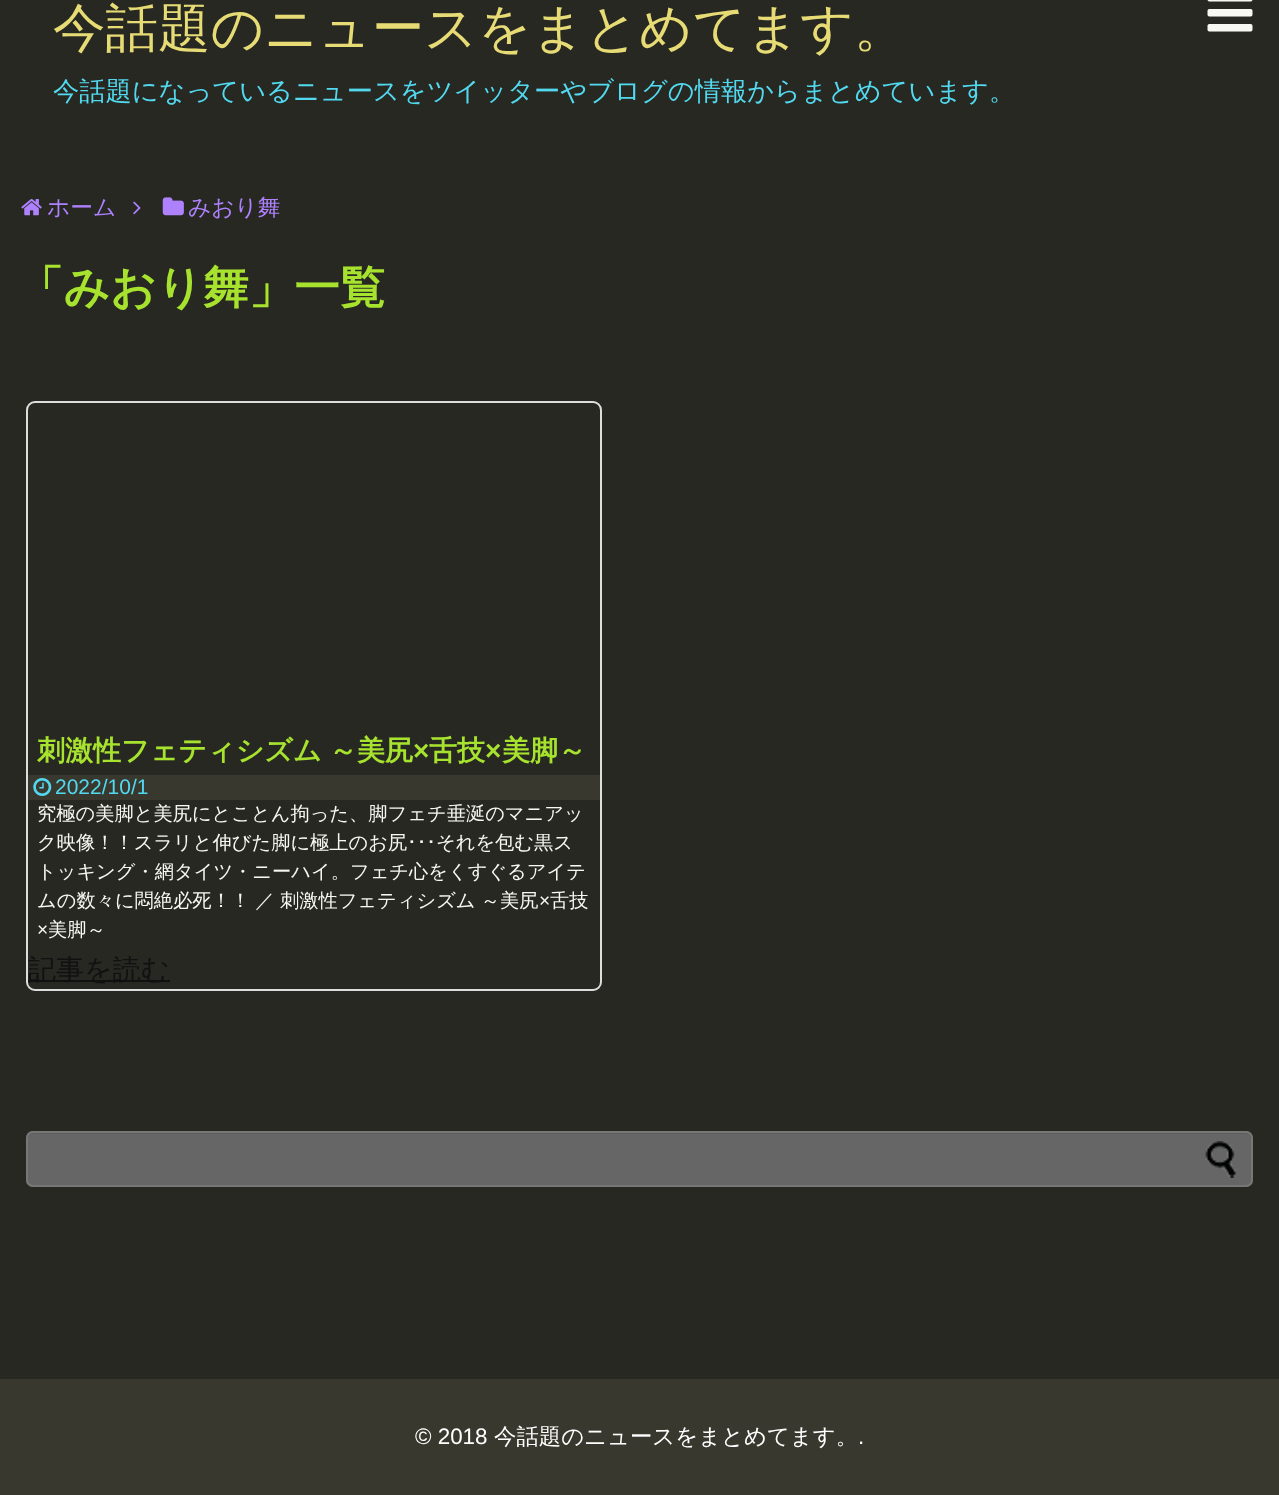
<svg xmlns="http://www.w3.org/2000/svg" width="1279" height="1495">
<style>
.a{font:500 52.5px WenQuanYi Zen Hei;fill:#e6db74}
.b{font:500 26.25px WenQuanYi Zen Hei;fill:#52d9ef}
.c{font:500 22.75px WenQuanYi Zen Hei;fill:#ae81ff}
.d{font:bold 45.5px WenQuanYi Zen Hei;fill:#a6e22e}
.e{font:bold 28px WenQuanYi Zen Hei;fill:#a6e22e}
.f{font:bold 28px Liberation Sans;fill:#a6e22e}
.g{font:21px Liberation Sans;fill:#52d9ef}
.h{font:500 19.25px WenQuanYi Zen Hei;fill:#f8f8f2}
.i{font:19.25px IPAPGothic;fill:#f8f8f2}
.j{font:19.25px Liberation Sans;fill:#f8f8f2}
.k{font:500 28px WenQuanYi Zen Hei;fill:#111}
.l{font:22.4px Liberation Sans;fill:#fff}
.m{font:500 22.4px WenQuanYi Zen Hei;fill:#fff}
</style>
<rect width="100%" height="100%" fill="#272822"/>
<image href="1.png" x="1207" y="0" width="46" height="32"/>
<image href="2.png" x="21" y="199" width="21" height="17"/>
<image href="3.png" x="133" y="201" width="8" height="14"/>
<image href="4.png" x="162" y="197" width="22" height="19"/>
<rect fill="none" stroke="#ddd" stroke-width="2" x="27" y="402" width="574" height="588" rx="8"/>
<path fill="#39382e" d="M28 775h572v25H28z"/>
<image href="5.png" x="33" y="778" width="19" height="18"/>
<path fill="#111" d="M28 980h142v2H28z"/>
<rect fill="#666" x="26" y="1131" width="1227" height="56" rx="7"/>
<path fill="#5e5e5e" d="M33 1134h1213c3 0 5 2 5 5v-2c0-3-2-5-5-5h-1213c-3 0-5 2-5 5v2c0-3 2-5 5-5z"/>
<rect fill="none" stroke="#777" stroke-width="2" x="27" y="1132" width="1225" height="54" rx="6"/>
<image href="6.png" x="1205" y="1141" width="31" height="37"/>
<path fill="#39382e" d="M0 1379h1279v116H0z"/>
<text class="a" x="53" y="46">今話題のニュースをまとめてます。</text>
<text class="b" x="53" y="100">今話題になっているニュースをツイッターやブログの情報からまとめています。</text>
<text class="c" x="47" y="215">ホーム</text>
<text class="c" x="188" y="215">みおり舞</text>
<text class="d" x="18" y="303">「みおり舞」一覧</text>
<text class="e" x="37" y="760" word-spacing="-1">刺激性フェティシズム ～美尻</text>
<text class="f" x="413" y="760">×</text>
<text class="e" x="429" y="760">舌技</text>
<text class="f" x="485" y="760">×</text>
<text class="e" x="502" y="760">美脚～</text>
<text class="g" x="55" y="794">2022/10/1</text>
<text class="h" x="37" y="820">究極の美脚と美尻にとことん拘った、脚フェチ垂涎のマニアッ</text>
<text class="h" x="37" y="849">ク映像！！スラリと伸びた脚に極上のお尻</text>
<text class="i" x="407" y="849">･･･</text>
<text class="h" x="436" y="849">それを包む黒ス</text>
<text class="h" x="37" y="878">トッキング・網タイツ・ニーハイ。フェチ心をくすぐるアイテ</text>
<text class="h" x="37" y="907" word-spacing="-0.5">ムの数々に悶絶必死！！ ／ 刺激性フェティシズム ～美尻</text>
<text class="j" x="539" y="907">×</text>
<text class="h" x="550" y="907">舌技</text>
<text class="j" x="37" y="936">×</text>
<text class="h" x="48" y="936">美脚～</text>
<text class="k" x="28" y="979">記事を読む</text>
<text class="l" x="415" y="1444">© 2018</text>
<text class="m" x="494" y="1444">今話題のニュースをまとめてます。</text>
<text class="l" x="858" y="1444">.</text>
</svg>
